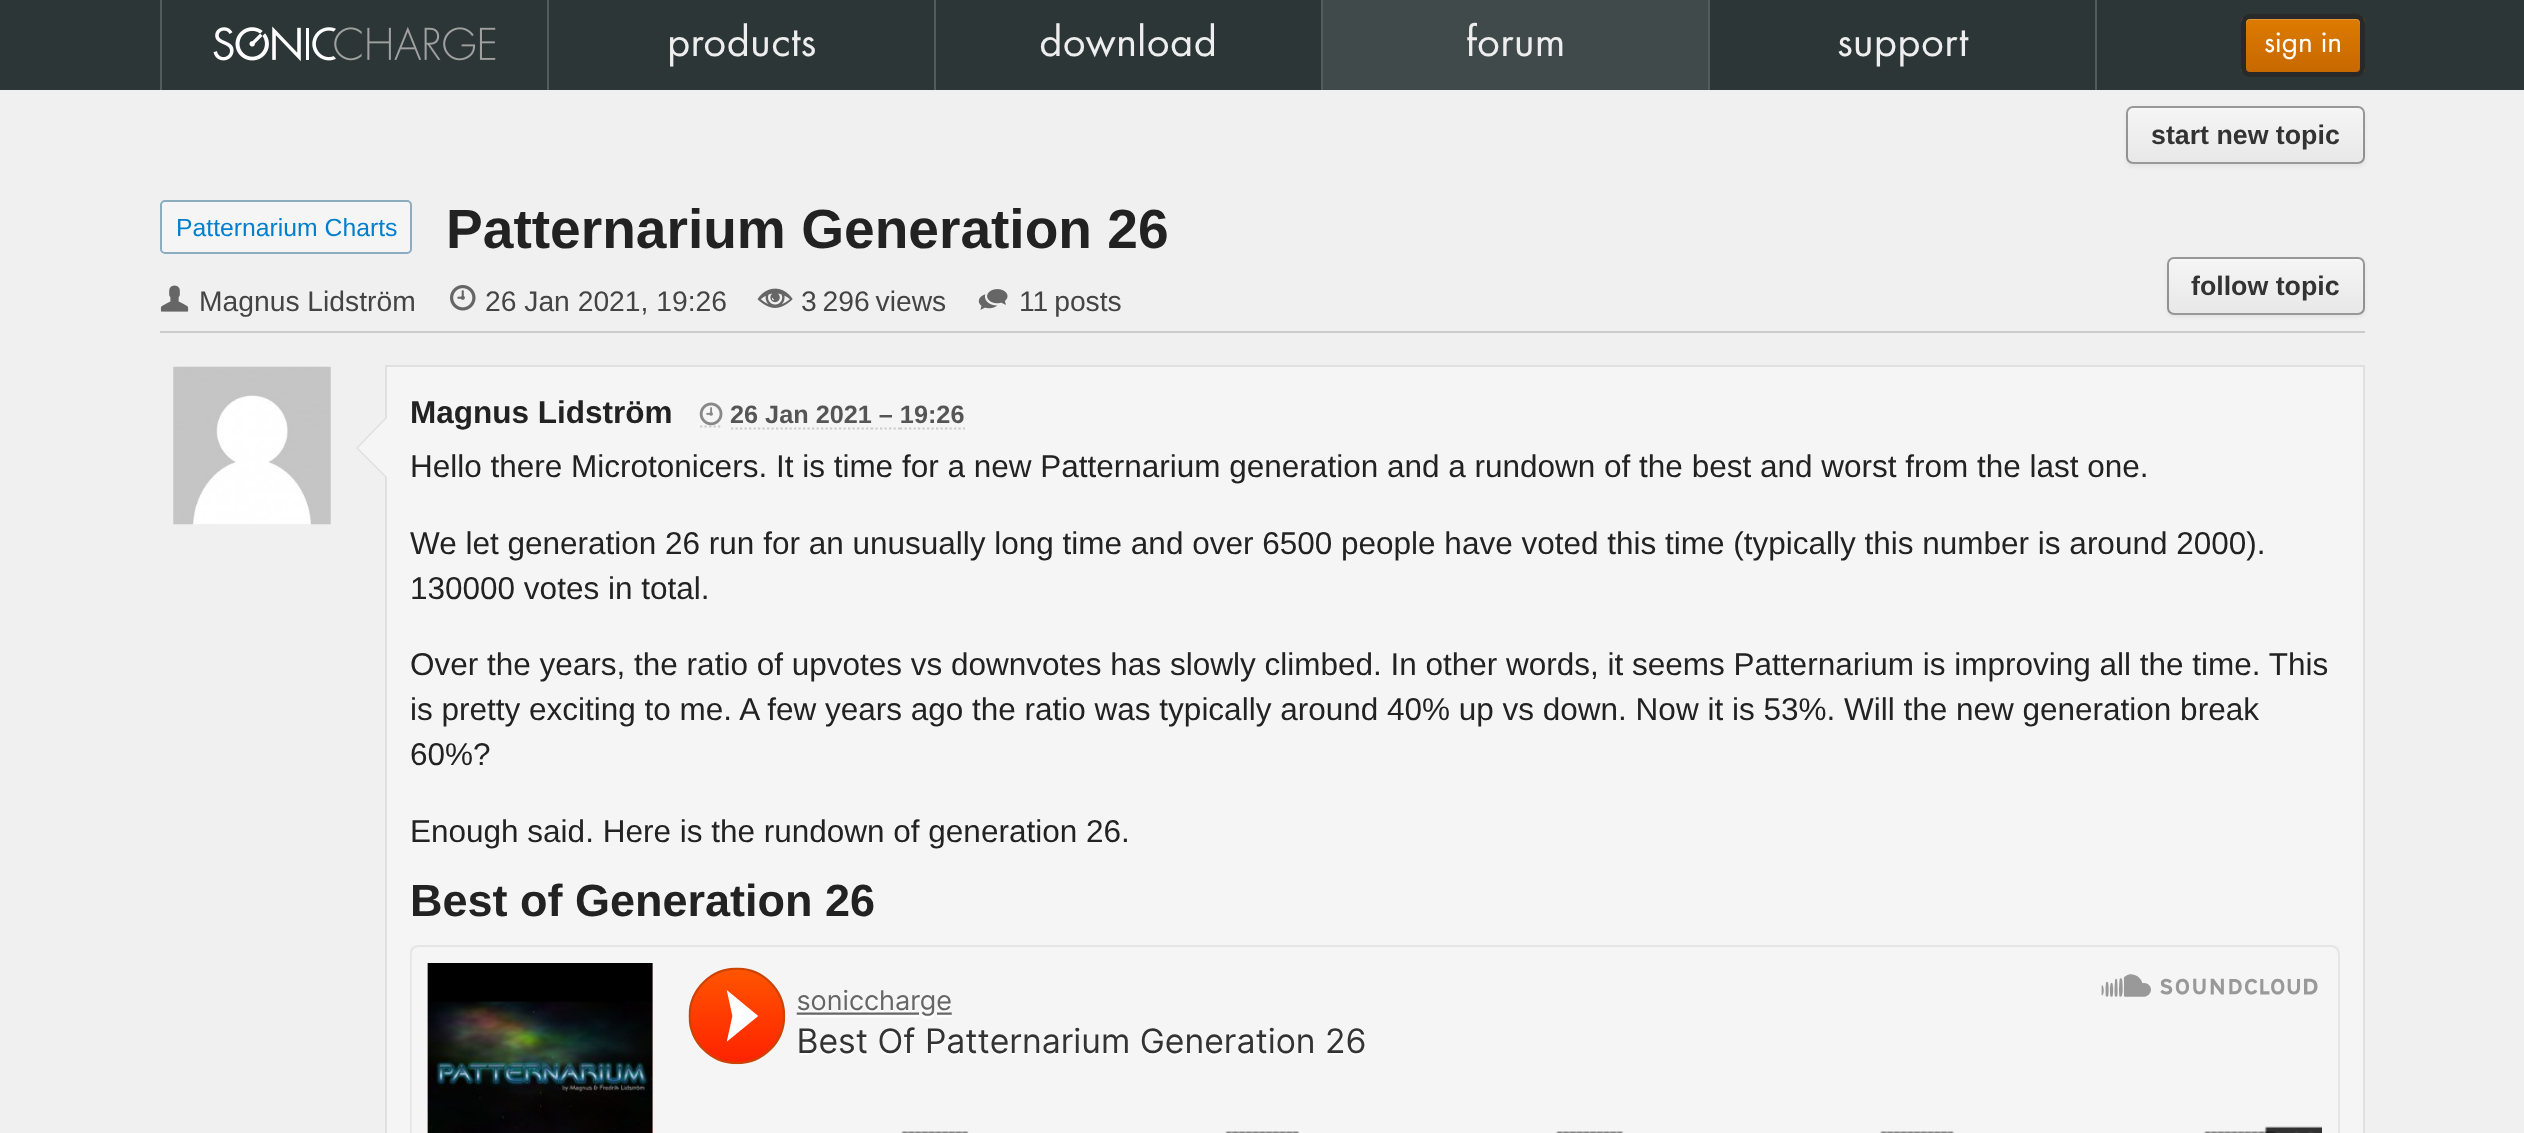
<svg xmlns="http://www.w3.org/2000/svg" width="2524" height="1133">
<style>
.a{font:45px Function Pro;fill:#eee}
.b{font:31.5px Function Pro;fill:#fff}
.c{font:bold 26.75px Liberation Sans;fill:#333}
.d{font:24.75px Liberation Sans;fill:#007fce}
.e{font:bold 55.1px Liberation Sans;fill:#222}
.f{font:28.25px Liberation Sans;fill:#444}
.g{font:bold 31.5px Liberation Sans;fill:#222}
.h{font:bold 25.25px Liberation Sans;fill:#555}
.i{font:31.5px Liberation Sans;fill:#222}
.j{font:bold 45px Liberation Sans;fill:#222}
</style>
<defs>
<clipPath id="clip1"><rect x="2241" y="14" width="124" height="63" rx="9"/></clipPath>
<linearGradient id="g1" gradientUnits="userSpaceOnUse" x1="2303" y1="18" x2="2303" y2="72"><stop offset="0" stop-color="#dd7b00"/><stop offset="1" stop-color="#c76800"/></linearGradient>
<clipPath id="clip2"><rect x="2126" y="106" width="239" height="58" rx="7"/></clipPath>
<linearGradient id="g2" gradientUnits="userSpaceOnUse" x1="2246" y1="108" x2="2246" y2="162"><stop offset="0" stop-color="#f5f5f5"/><stop offset="1" stop-color="#e8e8e8"/></linearGradient>
<clipPath id="clip3"><rect x="2167" y="257" width="198" height="58" rx="7"/></clipPath>
<linearGradient id="g3" gradientUnits="userSpaceOnUse" x1="2266" y1="259" x2="2266" y2="313"><stop offset="0" stop-color="#f5f5f5"/><stop offset="1" stop-color="#e8e8e8"/></linearGradient>
</defs>
<rect width="100%" height="100%" fill="#f0f0f0"/>
<path fill="#2c3636" d="M0 0h2524v90H0z"/>
<image href="1.png" x="213" y="26" width="283" height="36"/>
<path fill="#535b5b" d="M160 0h2v90H160z"/>
<path fill="#535b5b" d="M547 0h2v90H547z"/>
<path fill="#535b5b" d="M934 0h2v90H934z"/>
<path fill="#535b5b" d="M1321 0h2v90H1321z"/>
<path fill="#414a4a" d="M1323 0h385v90H1323z"/>
<path fill="#535b5b" d="M1708 0h2v90H1708z"/>
<path fill="#535b5b" d="M2095 0h2v90H2095z"/>
<g clip-path="url(#clip1)">
<path fill="url(#g1)" d="M2241 18h124v54H2241z"/>
</g>
<path fill="#e39533" d="M2250 20h106c2 0 4 2 4 5v-2c0-3-2-5-5-5h-104c-3 0-5 2-5 5v2c0-3 2-5 4-5z"/>
<rect fill="none" stroke="#292929" stroke-width="5" x="2243.5" y="16.5" width="119" height="58" rx="6.5"/>
<rect fill="#0000000d" filter="blur(2px)" x="2126" y="108" width="239" height="59" rx="7"/>
<rect fill="#f5f5f5" x="2126" y="106" width="239" height="58" rx="7"/>
<g clip-path="url(#clip2)">
<path fill="url(#g2)" d="M2126 108h239v54H2126z"/>
</g>
<path fill="#ffffff33" d="M2133 110h225c2 0 4 2 4 5v45c1-1 1-2 1-3v-44c0-3-2-5-5-5h-224c-2 0-4 2-5 4c1-1 3-2 4-2z"/>
<rect fill="none" stroke="#00000061" stroke-width="2" x="2127" y="107" width="237" height="56" rx="6"/>
<path fill="#ccc" d="M160 331h2205v2H160z"/>
<rect fill="#f5f5f5" stroke="#8cacc0" stroke-width="2" x="161" y="201" width="250" height="52" rx="4"/>
<image href="2.png" x="160" y="285" width="29" height="27"/>
<image href="3.png" x="450" y="285" width="26" height="26"/>
<image href="4.png" x="757" y="288" width="36" height="20"/>
<image href="5.png" x="978" y="289" width="30" height="21"/>
<rect fill="#0000000d" filter="blur(2px)" x="2167" y="259" width="198" height="58" rx="7"/>
<rect fill="#f5f5f5" x="2167" y="257" width="198" height="58" rx="7"/>
<g clip-path="url(#clip3)">
<path fill="url(#g3)" d="M2167 259h198v54H2167z"/>
</g>
<path fill="#ffffff33" d="M2174 261h184c2 0 4 2 4 5v45c1-1 1-2 1-3v-44c0-3-2-5-5-5h-184c-3 0-5 2-5 5v2c0-3 2-5 5-5z"/>
<rect fill="none" stroke="#00000061" stroke-width="2" x="2168" y="258" width="196" height="56" rx="6"/>
<path fill="#f5f5f5" stroke="#e0e0e0" stroke-width="2" d="M386 366h1978v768H386z"/>
<path fill="#e0e0e0" d="M387 416v63l-31-31z"/>
<image href="6.png" x="173" y="366" width="158" height="159"/>
<path fill="none" stroke="#ccc" stroke-width="2.2" stroke-dasharray="2.25 2.25" d="M700 426.5h22"/>
<path fill="none" stroke="#ccc" stroke-width="2.2" stroke-dasharray="2.25 2.25" d="M731 428.5h140"/>
<path fill="none" stroke="#ccc" stroke-width="2.2" stroke-dasharray="2.25 2.25" d="M871 428.5h29"/>
<path fill="none" stroke="#ccc" stroke-width="2.2" stroke-dasharray="2.25 2.25" d="M900 428.5h65"/>
<image href="7.png" x="699" y="402" width="24" height="24"/>
<path fill="#f5f5f5" d="M387 418v59l-29-29z"/>
<image href="8.png" x="410" y="945" width="1930" height="188"/>
<text class="a" x="667" y="56">products</text>
<text class="a" x="1039" y="56">download</text>
<text class="a" x="1466" y="56">forum</text>
<text class="a" x="1837" y="56">support</text>
<text class="b" x="2264" y="52">sign in</text>
<text class="c" x="2151" y="144">start new topic</text>
<text class="d" x="176" y="236">Patternarium Charts</text>
<text class="e" x="446" y="248">Patternarium Generation 26</text>
<text class="f" x="199" y="311">Magnus Lidström</text>
<text class="f" x="485" y="311">26 Jan 2021, 19:26</text>
<text class="f" x="801" y="311" word-spacing="-2">3 296 views</text>
<text class="f" x="1019" y="311" word-spacing="-2">11 posts</text>
<text class="c" x="2191" y="295">follow topic</text>
<text class="g" x="410" y="423">Magnus Lidström</text>
<text class="h" x="730" y="423">26 Jan 2021 – 19:26</text>
<text class="i" x="410" y="477">Hello there Microtonicers. It is time for a new Patternarium generation and a rundown of the best and worst from the last one.</text>
<text class="i" x="410" y="554">We let generation 26 run for an unusually long time and over 6500 people have voted this time (typically this number is around 2000).</text>
<text class="i" x="410" y="599">130000 votes in total.</text>
<text class="i" x="410" y="675">Over the years, the ratio of upvotes vs downvotes has slowly climbed. In other words, it seems Patternarium is improving all the time. This</text>
<text class="i" x="410" y="720">is pretty exciting to me. A few years ago the ratio was typically around 40% up vs down. Now it is 53%. Will the new generation break</text>
<text class="i" x="410" y="765">60%?</text>
<text class="i" x="410" y="842">Enough said. Here is the rundown of generation 26.</text>
<text class="j" x="410" y="916">Best of Generation 26</text>
</svg>
